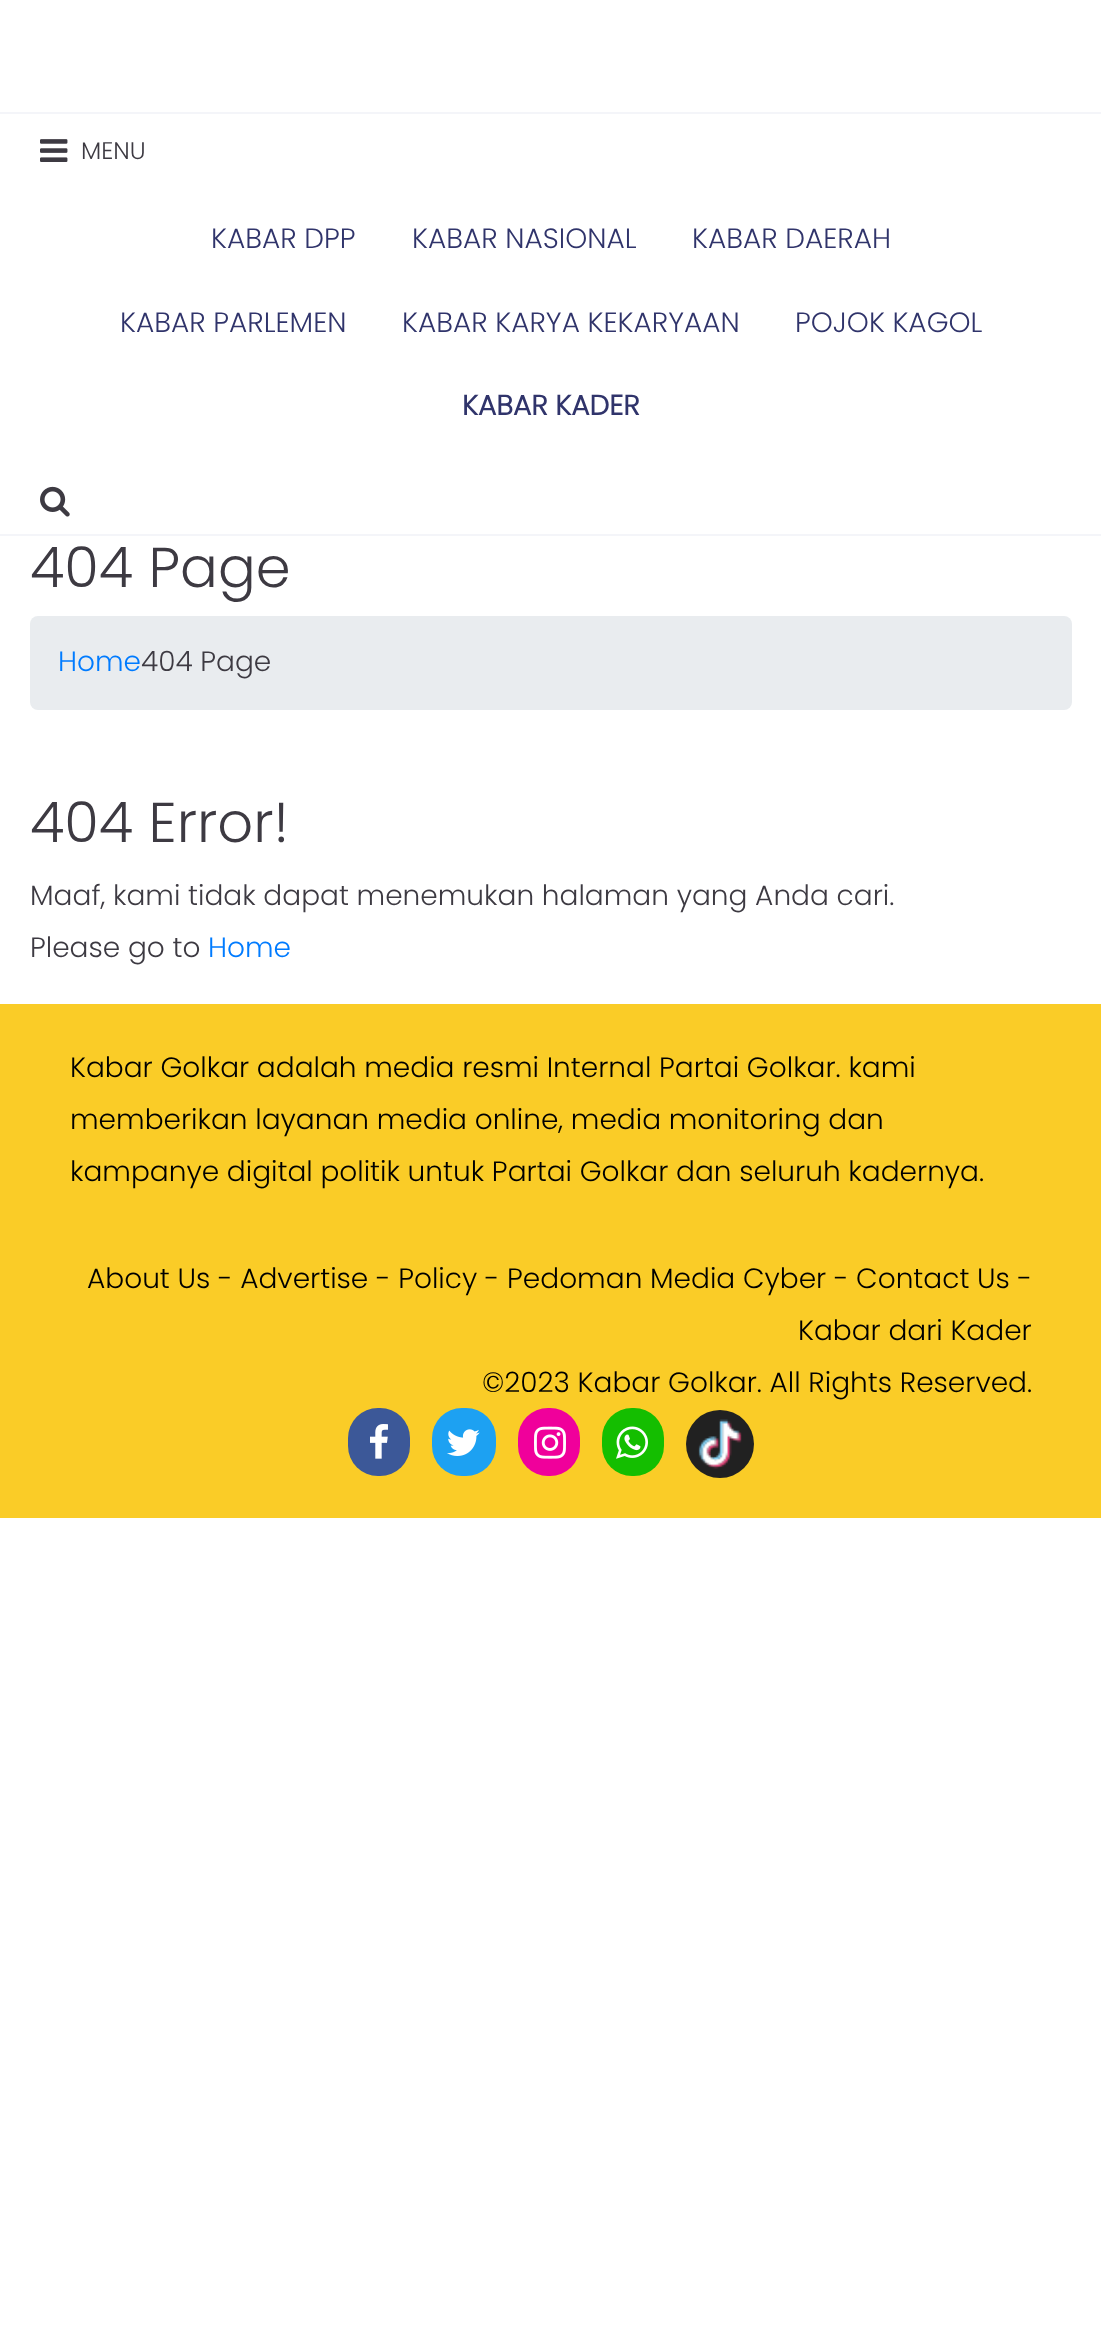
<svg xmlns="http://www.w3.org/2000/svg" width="1101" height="2333">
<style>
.a{font:300 24px Poppins;fill:#3d3a42}
.b{font:300 28px Poppins;fill:#30346b}
.c{font:bold 28px Poppins;fill:#30346b}
.d{font:300 56px Poppins;fill:#3d3a42}
.e{font:300 28px Poppins;fill:#007bff}
.f{font:300 28px Poppins;fill:#3d3a42}
.g{font:300 28px Poppins;fill:#000}
</style>
<rect width="100%" height="100%" fill="#fff"/>
<path fill="#f4f5f9" d="M0 112h1101v2H0z"/>
<path fill="#f4f5f9" d="M0 534h1101v2H0z"/>
<image href="1.png" x="40" y="139" width="28" height="23"/>
<image href="2.png" x="40" y="486" width="30" height="31"/>
<rect fill="#e9ecef" x="30" y="616" width="1042" height="94" rx="8"/>
<path fill="#facc27" d="M0 1004h1101v514H0z"/>
<rect fill="#3c5898" x="348" y="1408" width="62" height="68" rx="30"/>
<image href="3.png" x="370" y="1424" width="18" height="35"/>
<rect fill="#1da1f2" x="432" y="1408" width="64" height="68" rx="30"/>
<image href="4.png" x="447" y="1429" width="33" height="27"/>
<rect fill="#f0009b" x="518" y="1408" width="62" height="68" rx="30"/>
<image href="5.png" x="534" y="1426" width="32" height="33"/>
<rect fill="#14be00" x="602" y="1408" width="62" height="68" rx="30"/>
<image href="6.png" x="616" y="1426" width="32" height="33"/>
<image href="7.png" x="686" y="1410" width="68" height="68"/>
<text class="a" x="81" y="159">MENU</text>
<text class="b" x="211" y="248">KABAR DPP</text>
<text class="b" x="412" y="248">KABAR NASIONAL</text>
<text class="b" x="692" y="248">KABAR DAERAH</text>
<text class="b" x="120" y="332">KABAR PARLEMEN</text>
<text class="b" x="402" y="332">KABAR KARYA KEKARYAAN</text>
<text class="b" x="795" y="332">POJOK KAGOL</text>
<text class="c" x="462" y="415">KABAR KADER</text>
<text class="d" x="30" y="587">404 Page</text>
<text class="e" x="58" y="671">Home</text>
<text class="f" x="141" y="671">404 Page</text>
<text class="d" x="30" y="842">404 Error!</text>
<text class="f" x="30" y="905">Maaf, kami tidak dapat menemukan halaman yang Anda cari.</text>
<text class="f" x="30" y="957">Please go to</text>
<text class="e" x="208" y="957">Home</text>
<text class="g" x="70" y="1077">Kabar Golkar adalah media resmi Internal Partai Golkar. kami</text>
<text class="g" x="70" y="1129">memberikan layanan media online, media monitoring dan</text>
<text class="g" x="70" y="1181">kampanye digital politik untuk Partai Golkar dan seluruh kadernya.</text>
<text class="g" x="87" y="1288">About Us - Advertise - Policy - Pedoman Media Cyber - Contact Us -</text>
<text class="g" x="798" y="1340">Kabar dari Kader</text>
<text class="g" x="482" y="1392">©2023 Kabar Golkar. All Rights Reserved.</text>
</svg>
